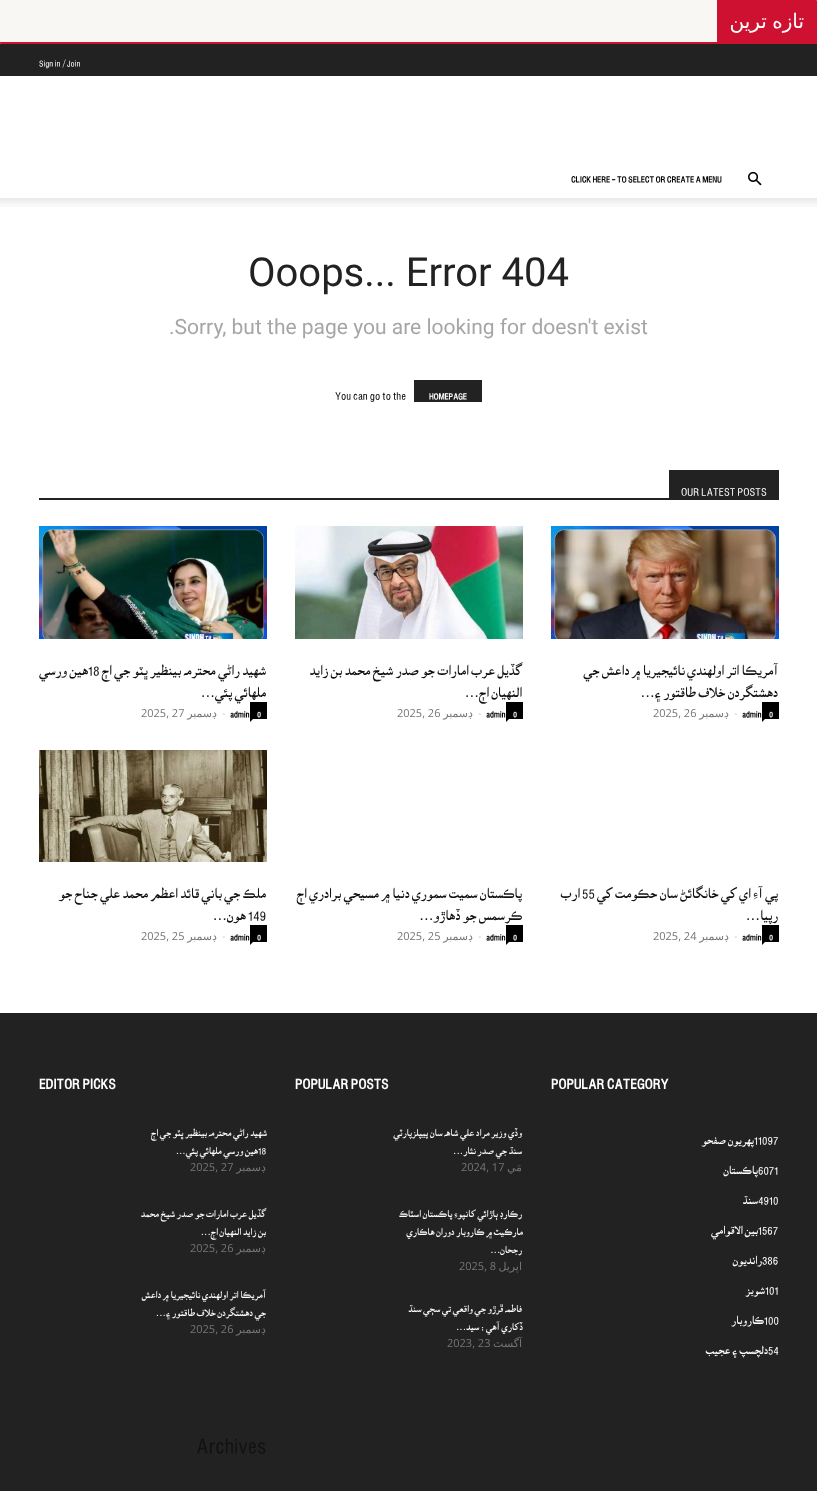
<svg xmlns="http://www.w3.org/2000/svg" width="817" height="1491">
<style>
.a{font:20px DejaVu Sans;direction:rtl;fill:#fff}
.b{font:11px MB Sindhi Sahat;fill:#fff}
.c{font:bold 11px MB Sindhi Sahat;fill:#000}
.d{font:40px Roboto;fill:#222}
.e{font:21px Roboto;fill:#a6a6a6}
.f{font:bold 11px MB Sindhi Sahat;fill:#fff}
.g{font:14px MB Sindhi Sahat;fill:#000}
.h{font:14px MB Sindhi Sahat;fill:#fff}
.i{font:17px MB Sindhi Sahat;direction:rtl;fill:#111}
.j{font:bold 10px MB Sindhi Sahat;fill:#fff}
.k{font:11px Open Sans;fill:#ccc}
.l{font:11px DejaVu Sans;direction:rtl;fill:#767676}
.m{font:11px Open Sans;fill:#767676}
.n{font:17px MB Sindhi Sahat;fill:#111}
.o{font:bold 18px MB Sindhi Sahat;fill:#fff}
.p{font:14px MB Sindhi Sahat;direction:rtl;fill:#fff}
.q{font:12px MB Sindhi Sahat;direction:rtl;fill:#fff}
.r{font:12px MB Sindhi Sahat;fill:#fff}
.s{font:27px MB Sindhi Sahat;fill:#111}
</style>
<rect width="100%" height="100%" fill="#fff"/>
<rect fill="#f9f7f3" width="817" height="44" rx="1"/>
<path fill="#ce1031" d="M717 0h99c.5 0 1 .5 1 1v42c0 .5-.5 1-1 1h-99z"/>
<path fill="#ce1031" d="M0 42h817v1c0 .5-.5 1-1 1h-815c-.5 0-1-.5-1-1z"/>
<path fill="#222" d="M0 44h817v32H0z"/>
<image href="1.png" x="748" y="171" width="14" height="15"/>
<image href="2.png" x="0" y="198" width="817" height="9"/>
<path fill="#222" d="M414 380h68v22H414z"/>
<path fill="#222" d="M39 498h740v2H39z"/>
<path fill="#222" d="M669 470h110v28H669z"/>
<image href="3.png" x="551" y="526" width="228" height="113"/>
<path fill="#000" d="M762 702h17v17H762z"/>
<path fill="#000" d="M762 719h3l-3 3z"/>
<image href="4.png" x="295" y="526" width="228" height="113"/>
<path fill="#000" d="M506 719h3l-3 3z"/>
<image href="5.png" x="39" y="526" width="228" height="113"/>
<path fill="#000" d="M250 719h3l-3 3z"/>
<path fill="#000" d="M762 925h17v17H762z"/>
<path fill="#000" d="M762 942h3l-3 3z"/>
<path fill="#000" d="M506 925h17v17H506z"/>
<path fill="#000" d="M506 942h3l-3 3z"/>
<image href="6.png" x="39" y="750" width="228" height="112"/>
<path fill="#000" d="M250 925h17v17H250z"/>
<path fill="#000" d="M250 942h3l-3 3z"/>
<path fill="#222" d="M0 1013h817v478H0z"/>
<text class="a" x="804" y="28" word-spacing="-1">تازه ترين</text>
<text class="b" x="39" y="66">Sign in / Join</text>
<text class="c" x="571" y="182">CLICK HERE - TO SELECT OR CREATE A MENU</text>
<text class="d" x="248" y="286">Ooops... Error 404</text>
<text class="e" x="169" y="334">.Sorry, but the page you are looking for doesn't exist</text>
<text class="f" x="429" y="399">HOMEPAGE</text>
<text class="g" x="335" y="399">You can go to the</text>
<text class="h" x="681" y="495">OUR LATEST POSTS</text>
<text class="i" x="778" y="675">آمريڪا اتر اولهندي نائيجيريا ۾ داعش جي</text>
<text class="i" x="778" y="697">دهشتگردن خلاف طاقتور ۽...</text>
<text class="j" x="769" y="717">0</text>
<text class="c" x="742" y="717">admin</text>
<text class="k" x="734" y="717">-</text>
<text class="l" x="729" y="717">ڊسمبر</text>
<text class="m" x="653" y="717">2025, 26</text>
<text class="i" x="522" y="675">گڏيل عرب امارات جو صدر شيخ محمد بن زايد</text>
<text class="i" x="522" y="697">النهيان اڄ...</text>
<path fill="#000" d="M506 702h17v17H506z"/>
<text class="j" x="513" y="717">0</text>
<text class="c" x="486" y="717">admin</text>
<text class="k" x="478" y="717">-</text>
<text class="l" x="473" y="717">ڊسمبر</text>
<text class="m" x="397" y="717">2025, 26</text>
<text class="i" x="266" y="675">شهيد راڻي محترمه بينظير ڀٽو جي اڄ</text>
<text class="n" x="88" y="675">18</text>
<text class="i" x="88" y="675">هين ورسي</text>
<text class="i" x="266" y="697">ملهائي پئي...</text>
<path fill="#000" d="M250 702h17v17H250z"/>
<text class="j" x="257" y="717">0</text>
<text class="c" x="230" y="717">admin</text>
<text class="k" x="222" y="717">-</text>
<text class="l" x="217" y="717">ڊسمبر</text>
<text class="m" x="141" y="717">2025, 27</text>
<text class="i" x="778" y="898">پي آءِ اي کي خانگائڻ سان حڪومت کي</text>
<text class="n" x="582" y="898">55</text>
<text class="i" x="580" y="898">ارب</text>
<text class="i" x="778" y="920">رپيا...</text>
<text class="j" x="769" y="940">0</text>
<text class="c" x="742" y="940">admin</text>
<text class="k" x="734" y="940">-</text>
<text class="l" x="729" y="940">ڊسمبر</text>
<text class="m" x="653" y="940">2025, 24</text>
<text class="i" x="522" y="898">پاڪستان سميت سموري دنيا ۾ مسيحي برادري اڄ</text>
<text class="i" x="522" y="920">ڪرسمس جو ڏهاڙو...</text>
<text class="j" x="513" y="940">0</text>
<text class="c" x="486" y="940">admin</text>
<text class="k" x="478" y="940">-</text>
<text class="l" x="473" y="940">ڊسمبر</text>
<text class="m" x="397" y="940">2025, 25</text>
<text class="i" x="266" y="898">ملڪ جي باني قائد اعظم محمد علي جناح جو</text>
<text class="n" x="248" y="920">149</text>
<text class="i" x="246" y="920">هون...</text>
<text class="j" x="257" y="940">0</text>
<text class="c" x="230" y="940">admin</text>
<text class="k" x="222" y="940">-</text>
<text class="l" x="217" y="940">ڊسمبر</text>
<text class="m" x="141" y="940">2025, 25</text>
<text class="o" x="551" y="1088">POPULAR CATEGORY</text>
<text class="h" x="754" y="1144">11097</text>
<text class="p" x="754" y="1144">پهريون صفحو</text>
<text class="h" x="758" y="1174">6071</text>
<text class="p" x="758" y="1174">پاڪستان</text>
<text class="h" x="758" y="1204">4910</text>
<text class="p" x="758" y="1204">سنڌ</text>
<text class="h" x="758" y="1234">1567</text>
<text class="p" x="758" y="1234">بين الاقوامي</text>
<text class="h" x="762" y="1264">386</text>
<text class="p" x="762" y="1264">رانديون</text>
<text class="h" x="765" y="1294">101</text>
<text class="p" x="765" y="1294">شوبز</text>
<text class="h" x="764" y="1324">100</text>
<text class="p" x="764" y="1324">ڪاروبار</text>
<text class="h" x="768" y="1354">54</text>
<text class="p" x="768" y="1354">دلچسپ ۽ عجيب</text>
<text class="o" x="295" y="1088">POPULAR POSTS</text>
<text class="q" x="522" y="1136">وڏي وزير مراد علي شاهه سان پيپلزپارٽي</text>
<text class="q" x="522" y="1154">سنڌ جي صدر نثار...</text>
<text class="l" x="522" y="1171">مَي</text>
<text class="m" x="461" y="1171">2024, 17</text>
<text class="q" x="522" y="1217">رڪارڊ ٻاڙائي کانپوءِ پاڪستان اسٽاڪ</text>
<text class="q" x="523" y="1235">مارڪيٽ ۾ ڪاروبار دوران هاڪاري</text>
<text class="q" x="522" y="1253">رجحان...</text>
<text class="l" x="522" y="1270">اپريل</text>
<text class="m" x="459" y="1270">2025, 8</text>
<text class="q" x="522" y="1312">فاطمه ڦرڙو جي واقعي تي سڄي سنڌ</text>
<text class="q" x="523" y="1330">ڏکاري آهي : سيد...</text>
<text class="l" x="522" y="1347">آگسٽ</text>
<text class="m" x="447" y="1347">2023, 23</text>
<text class="o" x="39" y="1088">EDITOR PICKS</text>
<text class="q" x="267" y="1136">شهيد راڻي محترمه بينظير ڀٽو جي اڄ</text>
<text class="q" x="258" y="1154">هين ورسي ملهائي پئي...</text>
<text class="r" x="258" y="1154">18</text>
<text class="l" x="266" y="1171">ڊسمبر</text>
<text class="m" x="190" y="1171">2025, 27</text>
<text class="q" x="266" y="1217">گڏيل عرب امارات جو صدر شيخ محمد</text>
<text class="q" x="266" y="1235">بن زايد النهيان اڄ...</text>
<text class="l" x="266" y="1252">ڊسمبر</text>
<text class="m" x="190" y="1252">2025, 26</text>
<text class="q" x="266" y="1298">آمريڪا اتر اولهندي نائيجيريا ۾ داعش</text>
<text class="q" x="266" y="1316">جي دهشتگردن خلاف طاقتور ۽...</text>
<text class="l" x="266" y="1333">ڊسمبر</text>
<text class="m" x="190" y="1333">2025, 26</text>
<text class="s" x="196" y="1452">Archives</text>
</svg>
